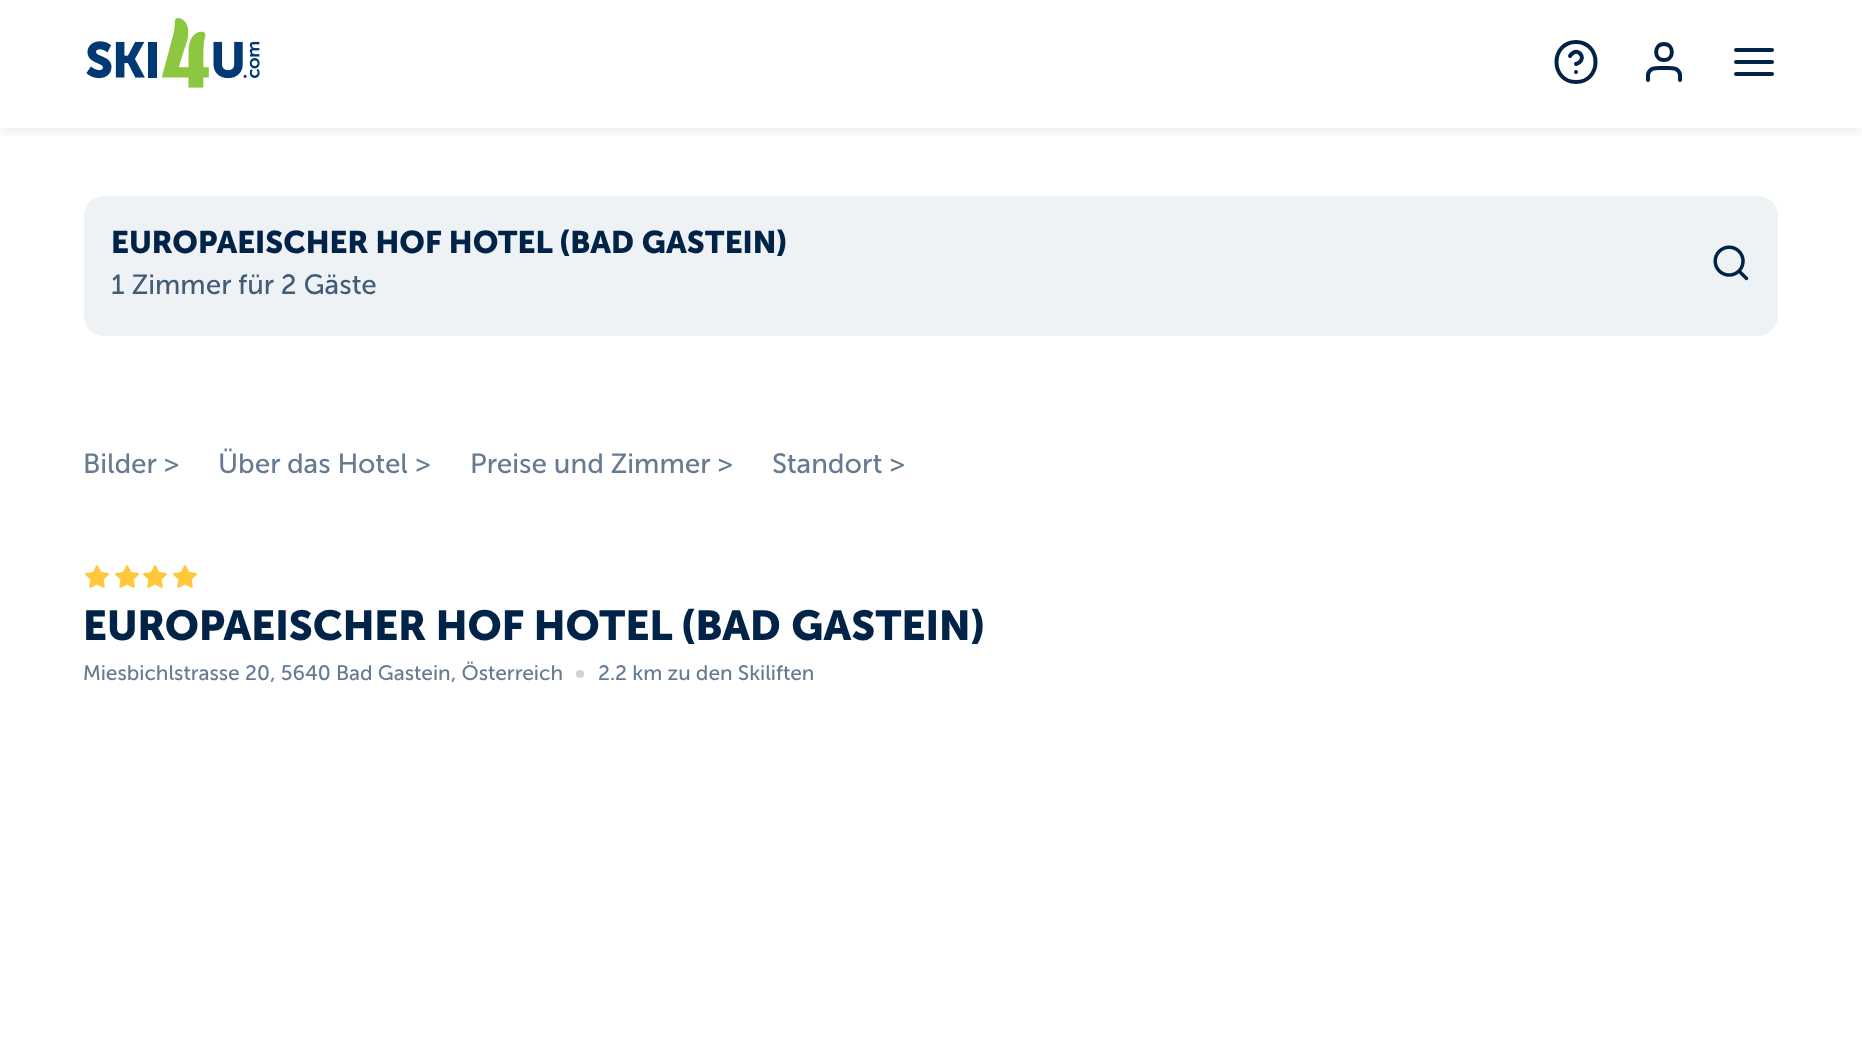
<svg xmlns="http://www.w3.org/2000/svg" width="1862" height="1055">
<style>
.a{font:bold 31.3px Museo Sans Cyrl;fill:#002347}
.b{font:27.75px Museo Sans Cyrl;fill:#425c78}
.c{font:27.75px Museo Sans Cyrl;fill:#667b91}
.d{font:bold 41.75px Museo Sans Cyrl;fill:#002347}
.e{font:20.9px Museo Sans Cyrl;fill:#667b91}
</style>
<defs>
<clipPath id="clip1"><path d="M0 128h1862v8H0z"/></clipPath>
</defs>
<rect width="100%" height="100%" fill="#fff"/>
<g clip-path="url(#clip1)">
<path fill="#00234714" filter="blur(6px)" d="M0 4h1862v128H0z"/>
</g>
<image href="1.png" x="86" y="18" width="174" height="70"/>
<path fill="none" stroke="#002347" stroke-width="4" stroke-linecap="round" stroke-linejoin="round" d="M1576 82c26 0 26-40 0-40c-26 0-26 40 0 40zm-6-26c.5-1.5 2-2.5 3.5-3.5c7-3.5 13.5 8 2.5 11.5m0 8h0"/>
<path fill="none" stroke="#002347" stroke-width="4" stroke-linecap="round" stroke-linejoin="round" d="M1680 80v-5.5c-1.5-8-10-6.5-16-6.5c-6 0-14.5-1.5-16 6.5v5.5m16-20c10.5 0 10.5-16 0-16c-10.5 0-10.5 16 0 16z"/>
<path fill="none" stroke="#002347" stroke-width="4" stroke-linecap="round" stroke-linejoin="round" d="M1736 62h36m-36-12h36m-36 24h36"/>
<rect fill="#eff2f5" x="84" y="196" width="1694" height="140" rx="20"/>
<image href="2.png" x="1713" y="245" width="36" height="36"/>
<image href="3.png" x="85" y="565" width="24" height="23"/>
<image href="3.png" x="115" y="565" width="24" height="23"/>
<image href="3.png" x="143" y="565" width="24" height="23"/>
<image href="3.png" x="173" y="565" width="24" height="23"/>
<circle fill="#ccd3da" cx="580" cy="674" r="4"/>
<text class="a" x="111" y="253">EUROPAEISCHER HOF HOTEL (BAD GASTEIN)</text>
<text class="b" x="111" y="294">1 Zimmer für 2 Gäste</text>
<text class="c" x="83" y="473">Bilder &gt;</text>
<text class="c" x="218" y="473">Über das Hotel &gt;</text>
<text class="c" x="470" y="473">Preise und Zimmer &gt;</text>
<text class="c" x="772" y="473">Standort &gt;</text>
<text class="d" x="83" y="640">EUROPAEISCHER HOF HOTEL (BAD GASTEIN)</text>
<text class="e" x="83" y="680">Miesbichlstrasse 20, 5640 Bad Gastein, Österreich</text>
<text class="e" x="598" y="680">2.2 km zu den Skiliften</text>
</svg>
